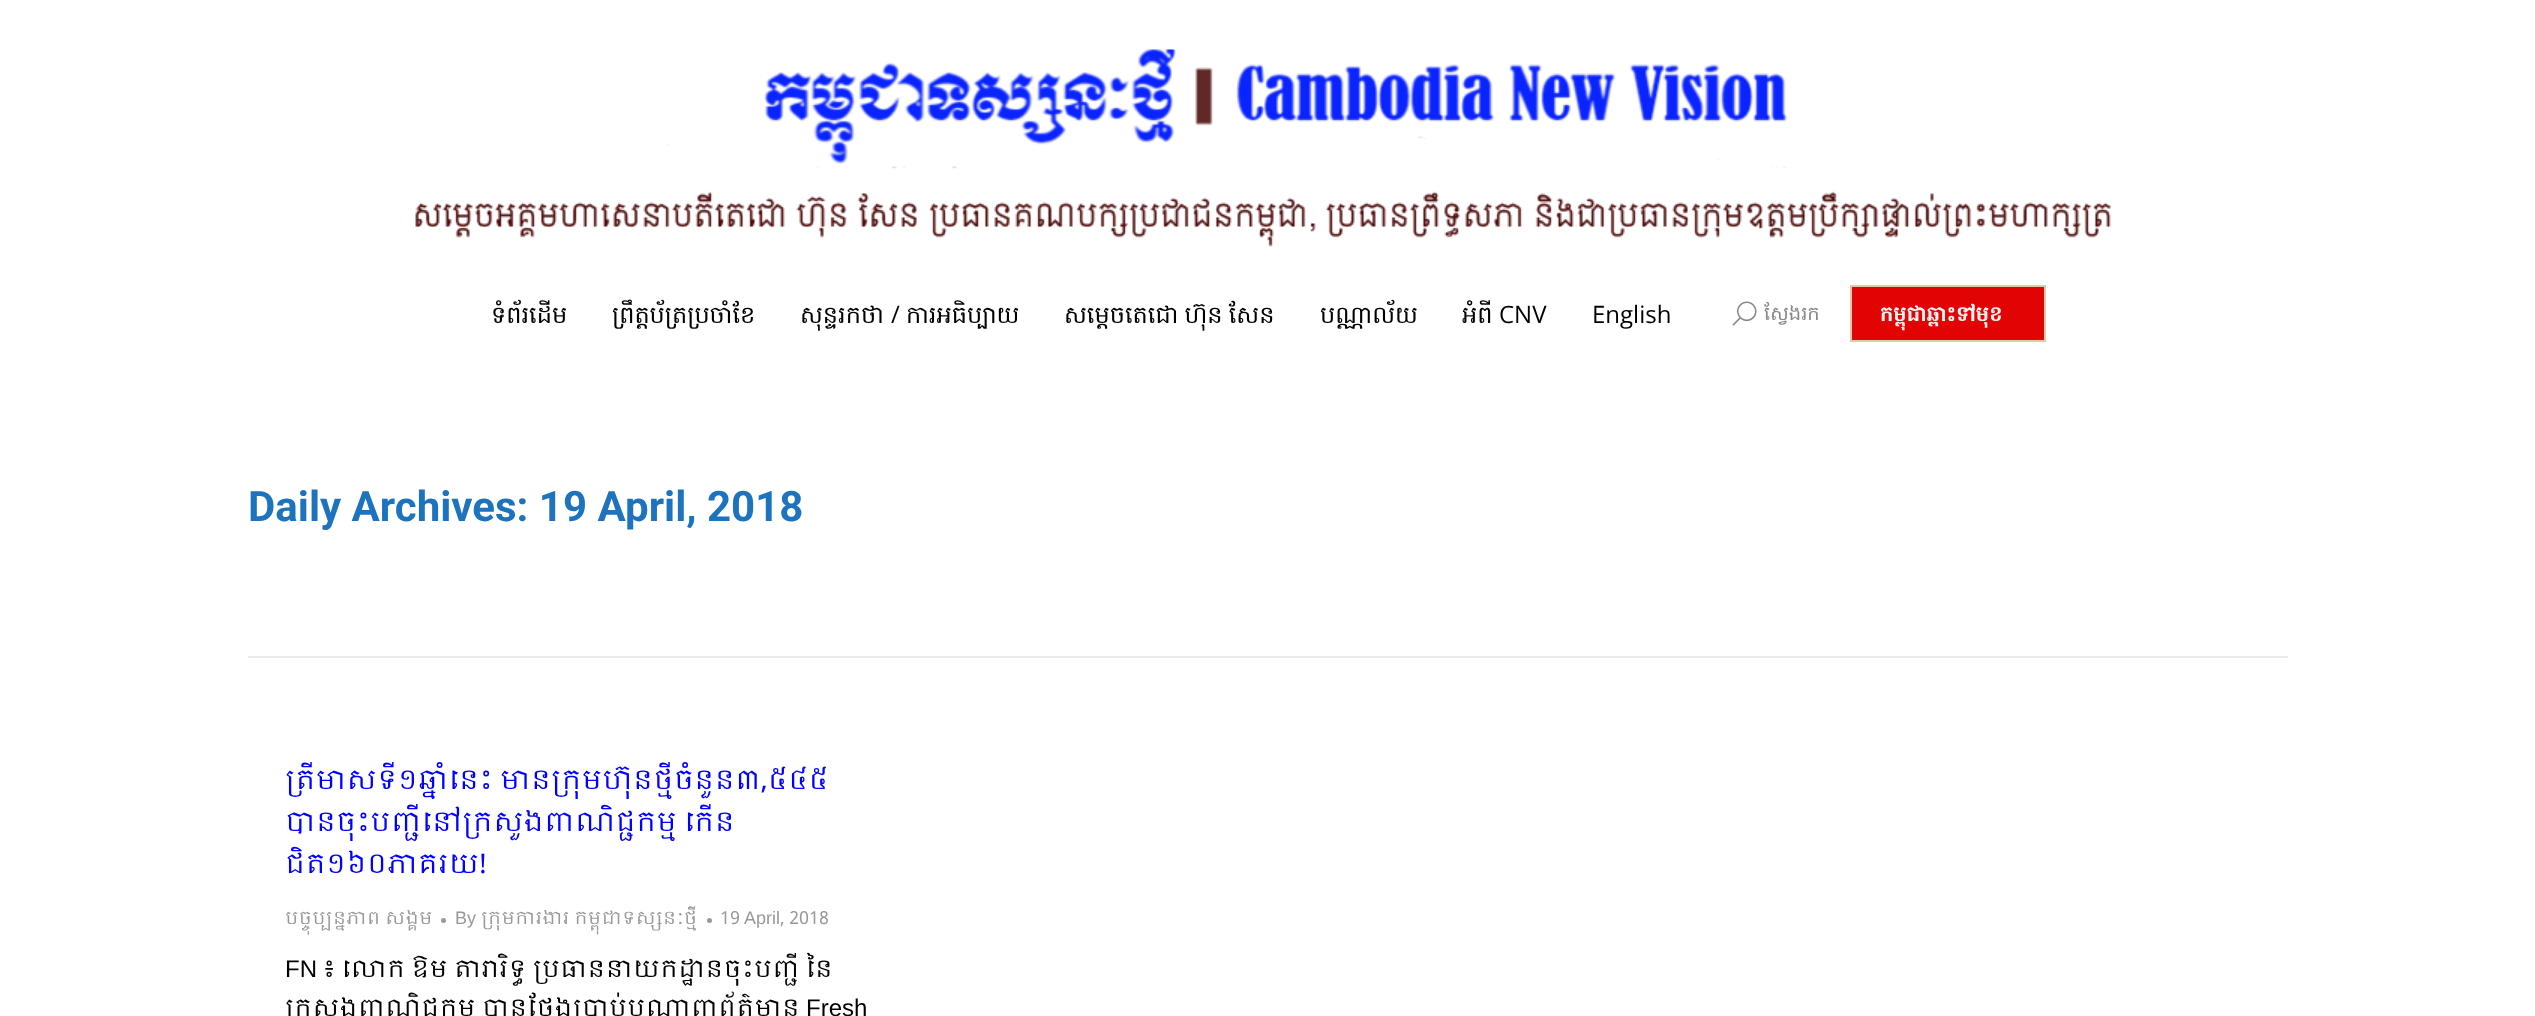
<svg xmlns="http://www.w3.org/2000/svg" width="2535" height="1016">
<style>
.a{font:24px Hanuman;fill:#000}
.b{font:24px Open Sans;fill:#000}
.c{font:19.5px Hanuman;fill:#888}
.d{font:bold 21px Hanuman;fill:#f2f2f2}
.e{font:bold 42px Roboto;fill:#1e73be}
.f{font:27px Khmer;fill:#00f}
.g{font:18px Khmer;fill:#999}
.h{font:18px Liberation Sans;fill:#999}
.i{font:24px Liberation Sans;fill:#000}
.j{font:24px Khmer;fill:#000}
</style>
<rect width="100%" height="100%" fill="#fff"/>
<image href="1.png" x="415" y="49" width="1697" height="198"/>
<image href="2.png" x="1732" y="301" width="25" height="25"/>
<path fill="#e20404" stroke="#e0caaf" stroke-width="2" d="M1851 286h194v55H1851z"/>
<path fill="#e9e9e9" d="M248 656h2040v2H248z"/>
<circle fill="#999" cx="443.5" cy="920.5" r="2.5"/>
<circle fill="#999" cx="709.5" cy="920.5" r="2.5"/>
<text class="a" x="491" y="323">ទំព័រដើម</text>
<text class="a" x="612" y="323">ព្រឹត្តប័ត្រប្រចាំខែ</text>
<text class="a" x="800" y="323">សុន្ទរកថា</text>
<text class="b" x="891" y="323">/</text>
<text class="a" x="906" y="323">ការអធិប្បាយ</text>
<text class="a" x="1064" y="323" word-spacing="-2">សម្តេចតេជោ ហ៊ុន សែន</text>
<text class="a" x="1320" y="323">បណ្ណាល័យ</text>
<text class="a" x="1462" y="323">អំពី</text>
<text class="b" x="1499" y="323">CNV</text>
<text class="b" x="1592" y="323">English</text>
<text class="c" x="1764" y="320">ស្វែងរក</text>
<text class="d" x="1880" y="321">កម្ពុជាឆ្ពោះទៅមុខ</text>
<text class="e" x="248" y="521">Daily Archives: 19 April, 2018</text>
<text class="f" x="285" y="789">ត្រីមាសទី១ឆ្នាំនេះ មានក្រុមហ៊ុនថ្មីចំនួន៣,៥៤៥</text>
<text class="f" x="285" y="831">បានចុះបញ្ជីនៅក្រសួងពាណិជ្ជកម្ម កើន</text>
<text class="f" x="285" y="873">ជិត១៦០ភាគរយ!</text>
<text class="g" x="285" y="924">បច្ចុប្បន្នភាព សង្គម</text>
<text class="h" x="455" y="924">By</text>
<text class="g" x="481" y="924">ក្រុមការងារ កម្ពុជាទស្សនៈថ្មី</text>
<text class="g" x="720" y="924">19</text>
<text class="h" x="744" y="924">April</text>
<text class="g" x="780" y="924">, 2018</text>
<text class="i" x="285" y="977">FN</text>
<text class="j" x="323" y="977">៖ លោក ឱម តារារិទ្ធ ប្រធាននាយកដ្ឋានចុះបញ្ជី នៃ</text>
<text class="j" x="285" y="1016">ក្រសួងពាណិជ្ជកម្ម បានថ្លែងប្រាប់បណ្តាញព័ត៌មាន</text>
<text class="i" x="806" y="1016">Fresh</text>
</svg>
